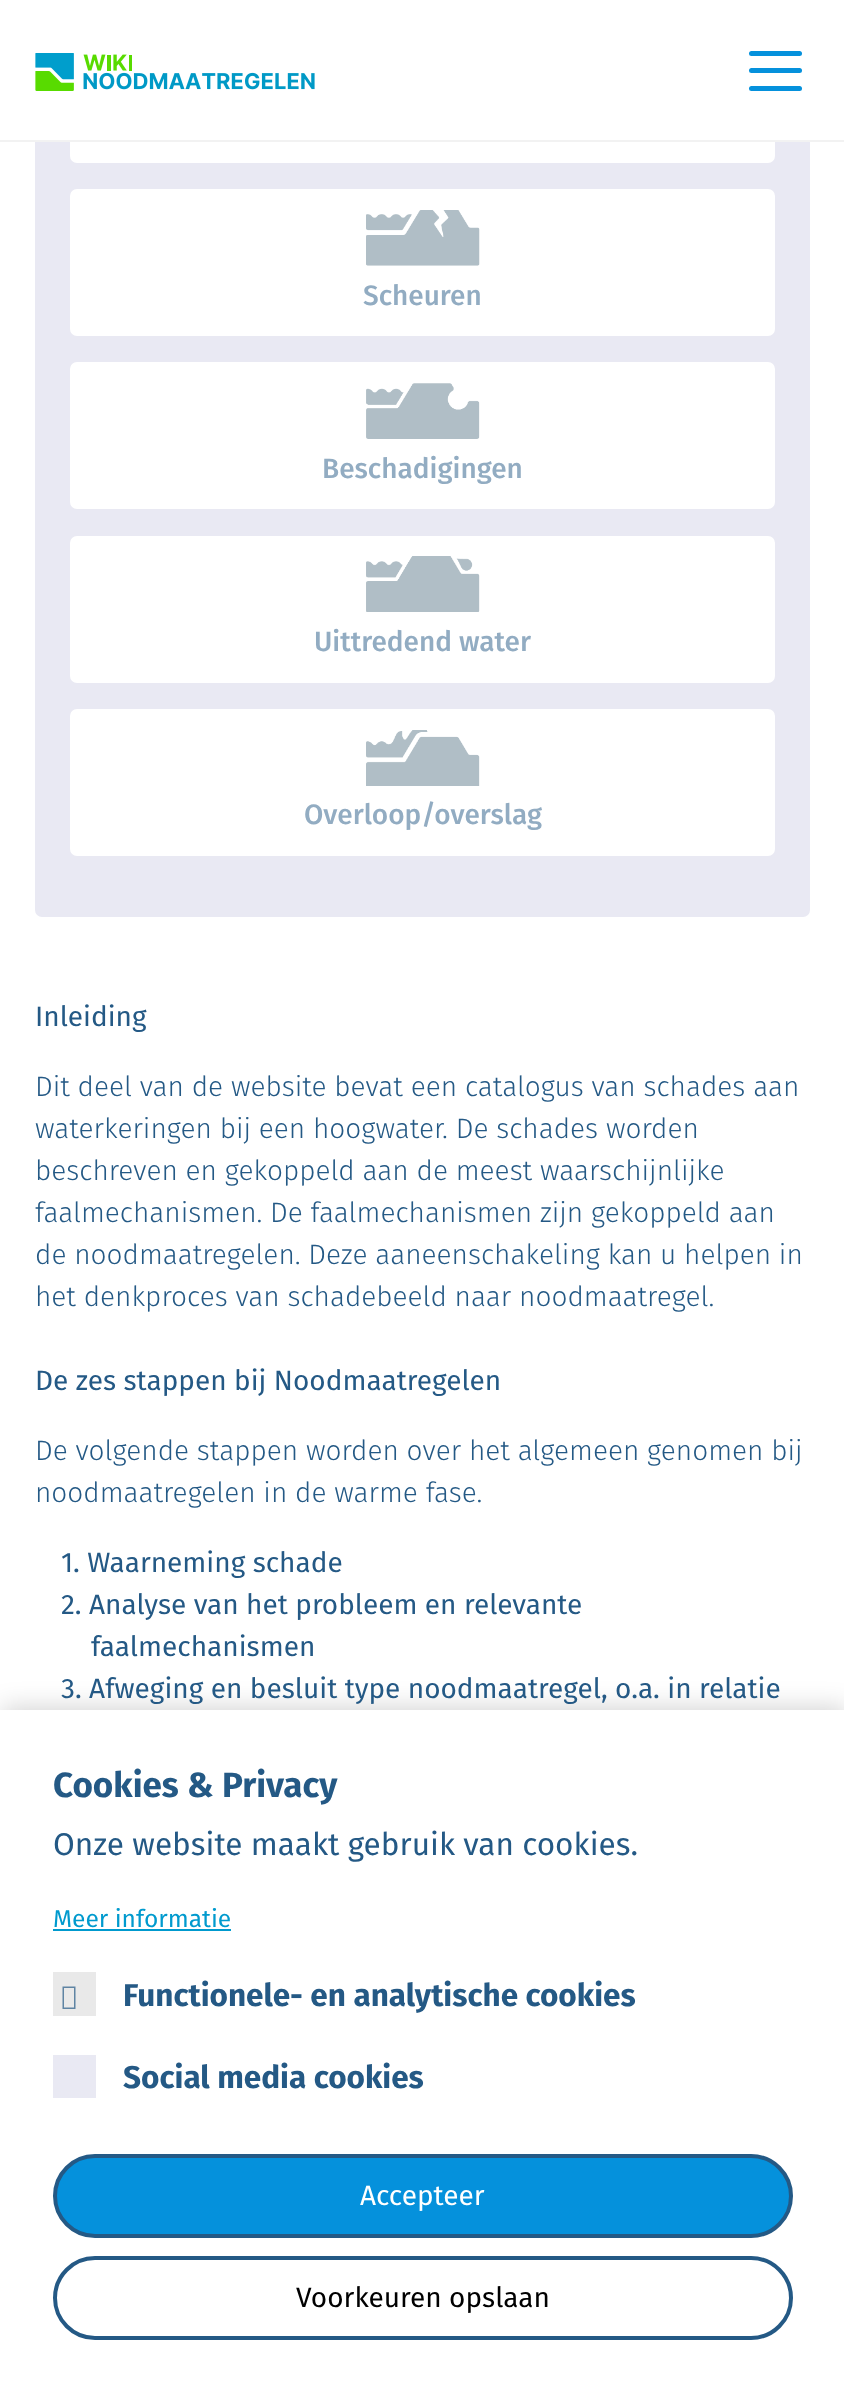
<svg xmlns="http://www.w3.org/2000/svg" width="844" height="2392">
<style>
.a{font:500 28px Fira Sans;fill:#92acc2}
.b{font:28px Fira Sans;fill:#245985}
.c{font:300 28px Fira Sans;fill:#245985}
.d{font:bold 35px Fira Sans;fill:#245985}
.e{font:31.5px Fira Sans;fill:#245985}
.f{font:24.5px Fira Sans;fill:#009ace}
.g{font:bold 31.5px Fira Sans;fill:#245985}
.h{font:28px Fira Sans;fill:#fff}
.i{font:28px Fira Sans;fill:#000}
</style>
<rect width="100%" height="100%" fill="#fff"/>
<rect fill="#e9e9f3" x="35" y="-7" width="775" height="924" rx="7"/>
<rect fill="#fff" stroke="#fff" stroke-width="4" x="72" y="18" width="701" height="143" rx="5"/>
<path fill="#fff" d="M35 0h775v140H35z"/>
<path fill="#f2f2f2" d="M0 140h844v2H0z"/>
<image href="1.png" x="35" y="53" width="280" height="38"/>
<rect fill="#0591dc" x="749" y="51" width="53" height="5" rx="2.5"/>
<rect fill="#0591dc" x="749" y="68" width="53" height="5" rx="2.5"/>
<rect fill="#0591dc" x="749" y="86" width="53" height="5" rx="2.5"/>
<rect fill="#fff" stroke="#fff" stroke-width="4" x="72" y="191" width="701" height="143" rx="5"/>
<image href="2.png" x="366" y="210" width="114" height="56"/>
<rect fill="#fff" stroke="#fff" stroke-width="4" x="72" y="364" width="701" height="143" rx="5"/>
<image href="3.png" x="366" y="383" width="114" height="56"/>
<rect fill="#fff" stroke="#fff" stroke-width="4" x="72" y="538" width="701" height="143" rx="5"/>
<image href="4.png" x="366" y="556" width="114" height="56"/>
<rect fill="#fff" stroke="#fff" stroke-width="4" x="72" y="711" width="701" height="143" rx="5"/>
<image href="5.png" x="366" y="730" width="114" height="56"/>
<path fill="#0000002e" filter="blur(13px)" d="M2 1708h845v683H2z"/>
<path fill="#fff" d="M0 1710h844v682H0z"/>
<path fill="#009ace" d="M53 1929h178v2H53z"/>
<path fill="#e9e9e9" d="M53 1972h43v44H53z"/>
<path fill="#5f84a3" d="M62.5 2009v-22.5h13v22.5zm1.5-1.5h10v-19.5h-10z"/>
<path fill="#e9e9f3" d="M53 2055h43v43H53z"/>
<rect fill="#0591dc" stroke="#245985" stroke-width="4" x="55" y="2156" width="736" height="80" rx="40"/>
<rect fill="none" stroke="#245985" stroke-width="4" x="55" y="2258" width="736" height="80" rx="40"/>
<text class="a" x="363" y="305">Scheuren</text>
<text class="a" x="322" y="478">Beschadigingen</text>
<text class="a" x="314" y="651">Uittredend water</text>
<text class="a" x="304" y="824">Overloop/overslag</text>
<text class="b" x="35" y="1026">Inleiding</text>
<text class="c" x="35" y="1096">Dit deel van de website bevat een catalogus van schades aan</text>
<text class="c" x="35" y="1138">waterkeringen bij een hoogwater. De schades worden</text>
<text class="c" x="35" y="1180">beschreven en gekoppeld aan de meest waarschijnlijke</text>
<text class="c" x="35" y="1222">faalmechanismen. De faalmechanismen zijn gekoppeld aan</text>
<text class="c" x="35" y="1264">de noodmaatregelen. Deze aaneenschakeling kan u helpen in</text>
<text class="c" x="35" y="1306">het denkproces van schadebeeld naar noodmaatregel.</text>
<text class="b" x="35" y="1390">De zes stappen bij Noodmaatregelen</text>
<text class="c" x="35" y="1460">De volgende stappen worden over het algemeen genomen bij</text>
<text class="c" x="35" y="1502">noodmaatregelen in de warme fase.</text>
<text class="b" x="61" y="1572">1. Waarneming schade</text>
<text class="b" x="61" y="1614">2. Analyse van het probleem en relevante</text>
<text class="b" x="91" y="1656">faalmechanismen</text>
<text class="b" x="61" y="1698">3. Afweging en besluit type noodmaatregel, o.a. in relatie</text>
<text class="d" x="53" y="1797">Cookies &amp; Privacy</text>
<text class="e" x="53" y="1855">Onze website maakt gebruik van cookies.</text>
<text class="f" x="53" y="1927">Meer informatie</text>
<text class="g" x="123" y="2006">Functionele- en analytische cookies</text>
<text class="g" x="123" y="2088">Social media cookies</text>
<text class="h" x="360" y="2205">Accepteer</text>
<text class="i" x="296" y="2307">Voorkeuren opslaan</text>
</svg>
